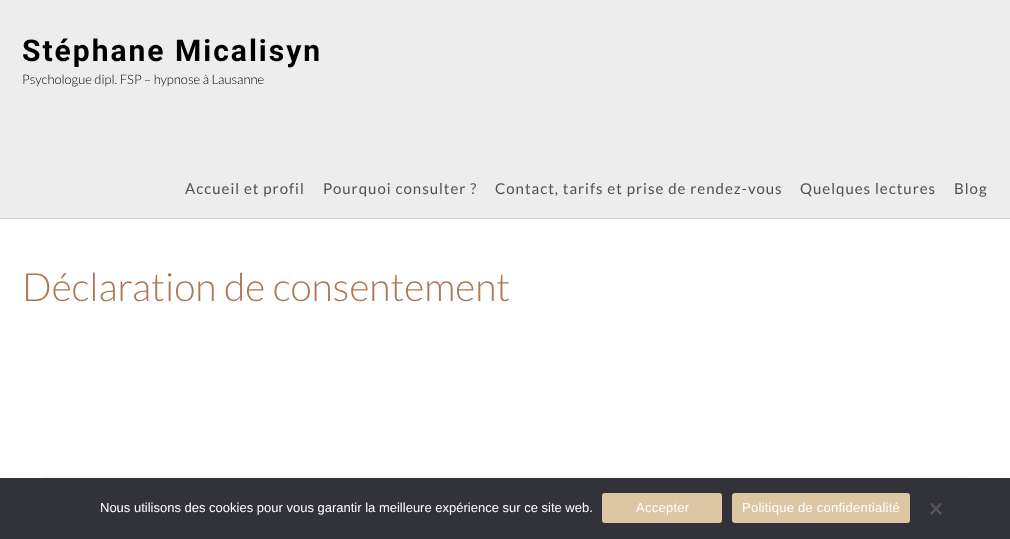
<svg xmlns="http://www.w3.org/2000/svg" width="1010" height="539">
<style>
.a{font:bold 30px Roboto;letter-spacing:2px;fill:#000}
.b{font:300 13px Lato;fill:#000}
.c{font:15px Lato;letter-spacing:1px;fill:#4d5351}
.d{font:300 39px Lato;fill:#ad7756}
.e{font:13px Liberation Sans;fill:#fff}
.f{font:13px Liberation Sans;letter-spacing:0.25px;fill:#fff}
</style>
<rect width="100%" height="100%" fill="#fff"/>
<path fill="#ededed" d="M0 0h1010v218H0z"/>
<path fill="#cacfd0" d="M0 218h1010v1H0z"/>
<path fill="#fbf7f5" d="M42 476h926v2H42z"/>
<path fill="#32323a" d="M0 478h1010v61H0z"/>
<rect fill="#ddc6a4" x="602" y="493" width="120" height="30" rx="3"/>
<rect fill="#ddc6a4" x="732" y="493" width="178" height="30" rx="3"/>
<path fill="#59595d" d="M940.5 502.5l1.5 1.5l-10.5 11l-1.5-1.5z"/>
<path fill="#59595d" d="M930 504l1.5-1.5l10.5 11l-1.5 1.5z"/>
<text class="a" x="22" y="61">Stéphane Micalisyn</text>
<text class="b" x="22" y="84">Psychologue dipl. FSP – hypnose à Lausanne</text>
<text class="c" x="185" y="194">Accueil et profil</text>
<text class="c" x="323" y="194">Pourquoi consulter ?</text>
<text class="c" x="495" y="194">Contact, tarifs et prise de rendez-vous</text>
<text class="c" x="800" y="194">Quelques lectures</text>
<text class="c" x="954" y="194">Blog</text>
<text class="d" x="22" y="301">Déclaration de consentement</text>
<text class="e" x="100" y="512">Nous utilisons des cookies pour vous garantir la meilleure expérience sur ce site web.</text>
<text class="f" x="636" y="512">Accepter</text>
<text class="f" x="742" y="512">Politique de confidentialité</text>
</svg>
